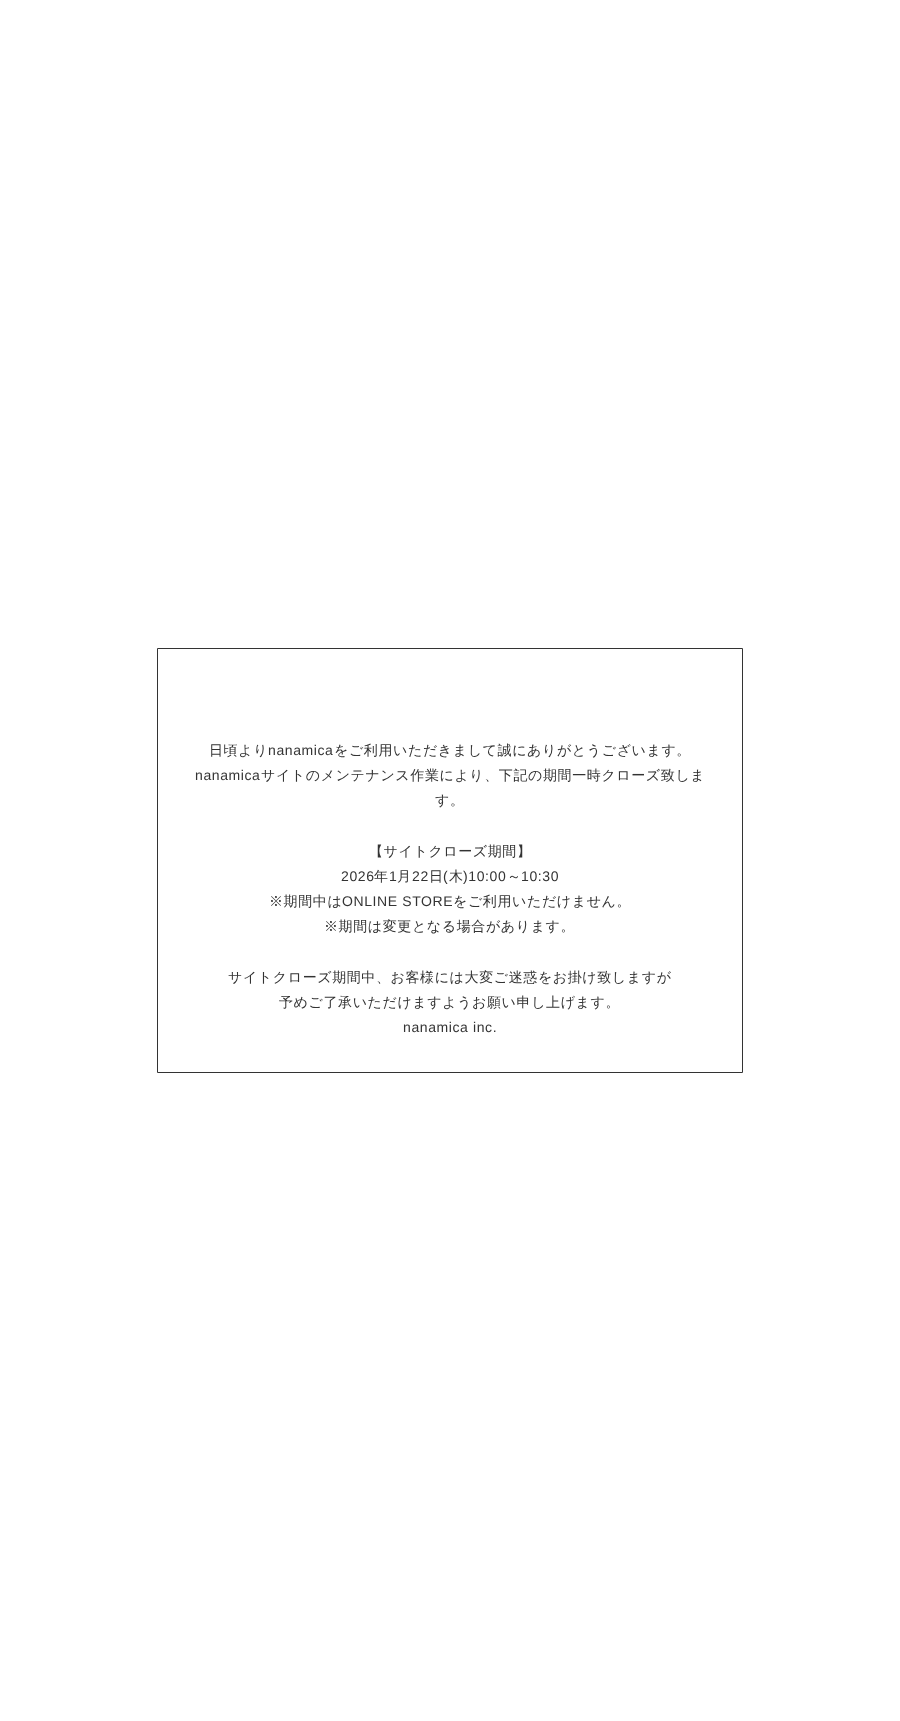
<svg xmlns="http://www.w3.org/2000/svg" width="900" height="1721">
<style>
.a{font:500 14px WenQuanYi Zen Hei;letter-spacing:0.6px;fill:#333}
.b{font:14px Liberation Sans;letter-spacing:0.6px;fill:#333}
</style>
<rect width="100%" height="100%" fill="#fff"/>
<path fill="none" stroke="#333" d="M157.5 648.5h585v424H157.5z"/>
<text class="a" x="209" y="755">日頃より</text>
<text class="b" x="268" y="755">nanamica</text>
<text class="a" x="334" y="755">をご利用いただきまして誠にありがとうございます。</text>
<text class="b" x="195" y="780">nanamica</text>
<text class="a" x="261" y="780">サイトのメンテナンス作業により、下記の期間一時クローズ致しま</text>
<text class="a" x="435" y="805">す。</text>
<text class="a" x="369" y="856">【サイトクローズ期間】</text>
<text class="b" x="341" y="881">2026</text>
<text class="a" x="374" y="881">年</text>
<text class="b" x="389" y="881">1</text>
<text class="a" x="397" y="881">月</text>
<text class="b" x="412" y="881">22</text>
<text class="a" x="429" y="881">日</text>
<text class="b" x="443" y="881">(</text>
<text class="a" x="449" y="881">木</text>
<text class="b" x="463" y="881">)10:00</text>
<text class="a" x="507" y="881">～</text>
<text class="b" x="521" y="881">10:30</text>
<text class="a" x="269" y="906">※期間中は</text>
<text class="b" x="342" y="906">ONLINE STORE</text>
<text class="a" x="453" y="906">をご利用いただけません。</text>
<text class="a" x="324" y="931">※期間は変更となる場合があります。</text>
<text class="a" x="228" y="982">サイトクローズ期間中、お客様には大変ご迷惑をお掛け致しますが</text>
<text class="a" x="279" y="1007">予めご了承いただけますようお願い申し上げます。</text>
<text class="b" x="403" y="1032">nanamica inc.</text>
</svg>
